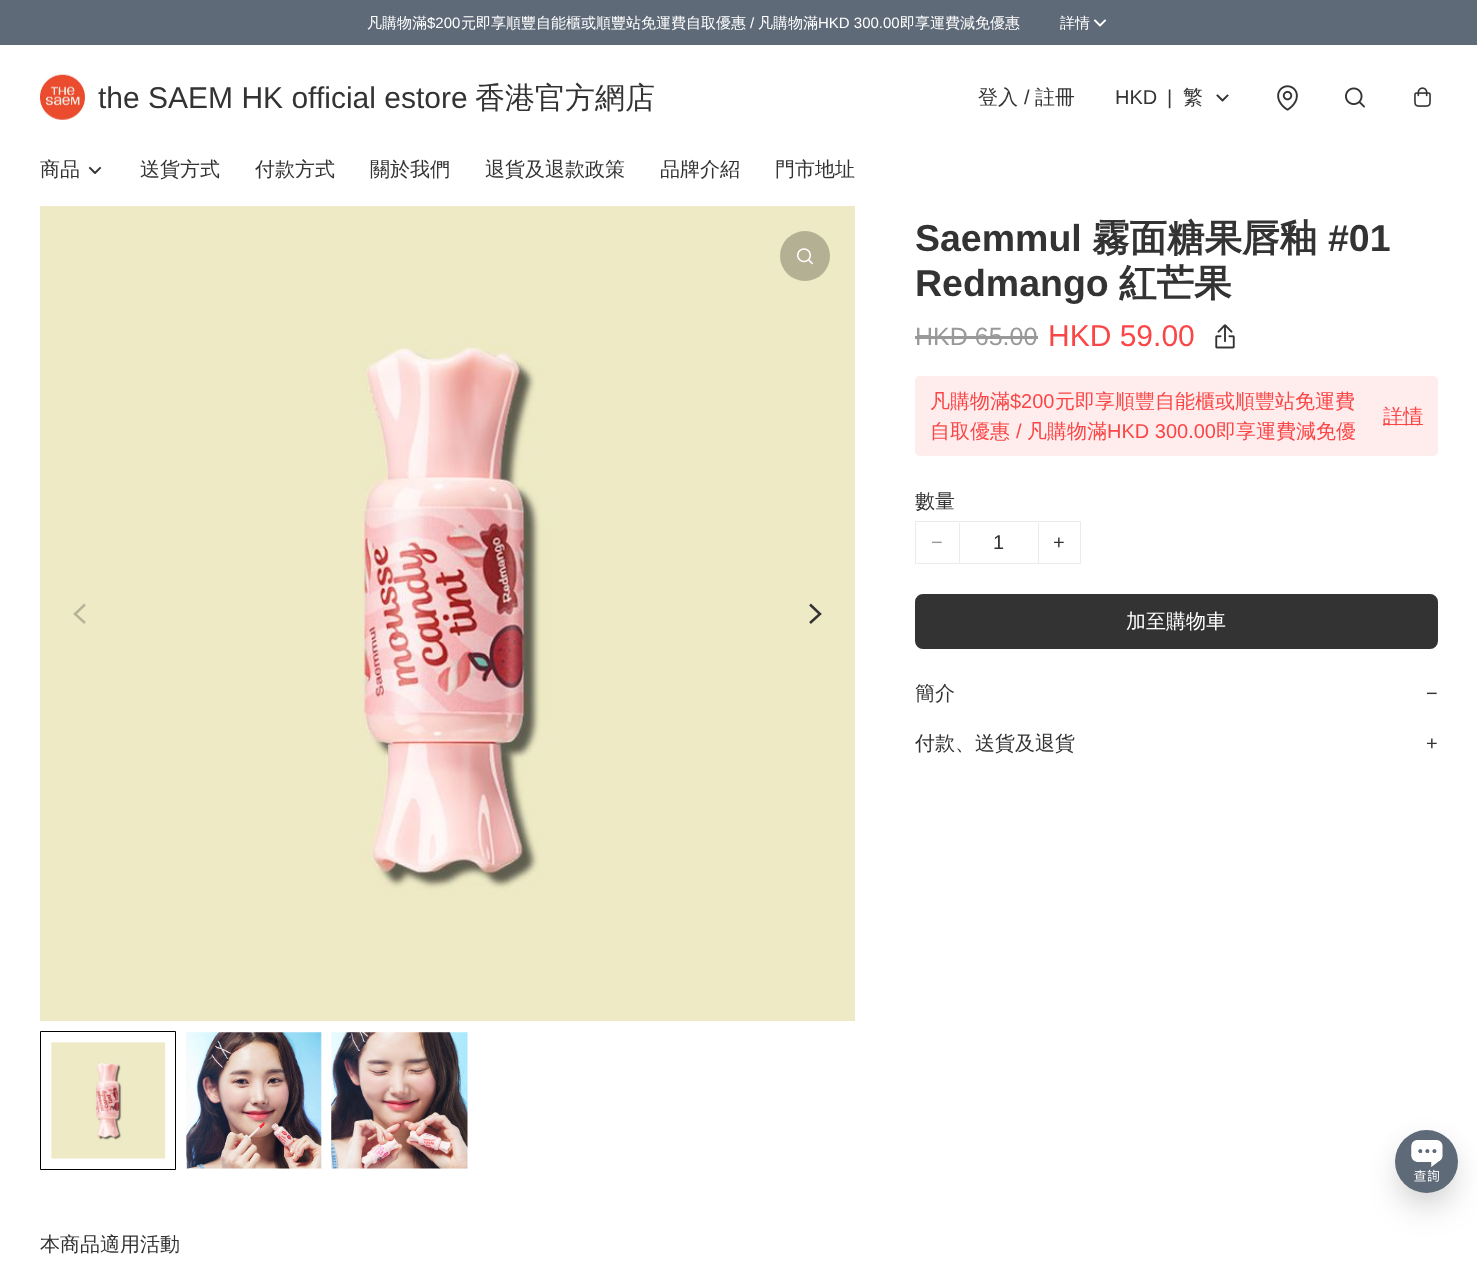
<svg xmlns="http://www.w3.org/2000/svg" width="1477" height="1262">
<style>
.a{font:500 15px WenQuanYi Zen Hei;fill:#fff}
.b{font:15px Liberation Sans;fill:#fff}
.c{font:30px Liberation Sans;fill:#333}
.d{font:500 30px WenQuanYi Zen Hei;fill:#333}
.e{font:500 20px WenQuanYi Zen Hei;fill:#333}
.f{font:20px Liberation Sans;fill:#333}
.g{font:bold 37.5px Liberation Sans;fill:#333}
.h{font:bold 37.5px WenQuanYi Zen Hei;fill:#333}
.i{font:25px Liberation Sans;fill:#999}
.j{font:30px Liberation Sans;fill:#fa4646}
.k{font:500 20px WenQuanYi Zen Hei;fill:#fa4646}
.l{font:20px Liberation Sans;fill:#fa4646}
.m{font:20px Liberation Sans;fill:#999}
.n{font:500 20px WenQuanYi Zen Hei;fill:#fff}
</style>
<rect width="100%" height="100%" fill="#fff"/>
<path fill="#5f6a78" d="M0 0h1477v45H0z"/>
<path fill="none" stroke="#fff" stroke-width="1.9" stroke-linecap="square" stroke-linejoin="round" d="M1095 20.5l5 5l5-5"/>
<image href="1.png" x="40" y="74" width="45" height="46"/>
<path fill="none" stroke="#333" stroke-width="1.9" stroke-linecap="square" stroke-linejoin="round" d="M1217.5 95.5l5 5l5-5"/>
<image href="2.png" x="1277" y="85" width="21" height="26"/>
<image href="3.png" x="1345" y="87" width="20" height="21"/>
<image href="4.png" x="1414" y="87" width="17" height="20"/>
<path fill="none" stroke="#333" stroke-width="1.9" stroke-linecap="square" stroke-linejoin="round" d="M90 168l5 5l5-5"/>
<path fill="#999" d="M915 336h123v3H915z"/>
<image href="5.png" x="1215" y="324" width="20" height="25"/>
<rect fill="#ffeded" x="915" y="376" width="523" height="80" rx="5"/>
<path fill="#fa4646" d="M1383 424h40v1H1383z"/>
<path fill="none" stroke="#ebebeb" d="M915.5 521.5h165v42H915.5z"/>
<path fill="#ebebeb" d="M1038 523h1v40H1038z"/>
<path fill="#ebebeb" d="M959 523h1v40H959z"/>
<rect fill="#333" stroke="#333" stroke-width="3" x="916.5" y="595.5" width="520" height="52" rx="6.5"/>
<image href="6.png" x="40" y="206" width="815" height="815"/>
<circle fill="#b3b094" cx="805" cy="256" r="25"/>
<image href="7.png" x="797" y="248" width="16" height="17"/>
<path fill="none" stroke="#b6b399" stroke-width="2.5" d="M85 604.5l-10 9.5l10 9"/>
<path fill="none" stroke="#333" stroke-width="2.5" d="M810 604.5l10 9.5l-10 9"/>
<path fill="none" stroke="#000" d="M40.5 1031.5h135v138H40.5z"/>
<image href="8.png" x="51" y="1042" width="115" height="117"/>
<image href="9.png" x="185" y="1032" width="137" height="137"/>
<image href="10.png" x="331" y="1032" width="137" height="137"/>
<rect fill="#0000004d" filter="blur(19px)" x="1408" y="1161" width="37" height="38" rx="18.5"/>
<rect fill="#0000000d" filter="blur(12.5px)" x="1395" y="1136" width="63" height="63" rx="31.5"/>
<circle fill="#5f6a78" cx="1426.5" cy="1161.5" r="31.5"/>
<image href="11.png" x="1411" y="1140" width="32" height="42"/>
<text class="a" x="367" y="28">凡購物滿</text>
<text class="b" x="427" y="28">$200</text>
<text class="a" x="461" y="28">元即享順豐自能櫃或順豐站免運費自取優惠</text>
<text class="b" x="750" y="28">/</text>
<text class="a" x="758" y="28">凡購物滿</text>
<text class="b" x="818" y="28">HKD 300.00</text>
<text class="a" x="900" y="28">即享運費減免優惠</text>
<text class="a" x="1060" y="28">詳情</text>
<text class="c" x="98" y="108">the SAEM HK official estore</text>
<text class="d" x="475" y="108">香港官方網店</text>
<text class="e" x="978" y="104">登入</text>
<text class="f" x="1024" y="104">/</text>
<text class="e" x="1035" y="104">註冊</text>
<text class="f" x="1115" y="104">HKD</text>
<text class="f" x="1167" y="104">|</text>
<text class="e" x="1183" y="104">繁</text>
<text class="e" x="40" y="176">商品</text>
<text class="e" x="140" y="176">送貨方式</text>
<text class="e" x="255" y="176">付款方式</text>
<text class="e" x="370" y="176">關於我們</text>
<text class="e" x="485" y="176">退貨及退款政策</text>
<text class="e" x="660" y="176">品牌介紹</text>
<text class="e" x="775" y="176">門市地址</text>
<text class="g" x="915" y="251">Saemmul</text>
<text class="h" x="1092" y="251">霧面糖果唇釉</text>
<text class="g" x="1328" y="251">#01</text>
<text class="g" x="915" y="296">Redmango</text>
<text class="h" x="1119" y="296">紅芒果</text>
<text class="i" x="915" y="345">HKD 65.00</text>
<text class="j" x="1048" y="346">HKD 59.00</text>
<text class="k" x="930" y="408">凡購物滿</text>
<text class="l" x="1010" y="408">$200</text>
<text class="k" x="1055" y="408">元即享順豐自能櫃或順豐站免運費</text>
<text class="k" x="930" y="438">自取優惠</text>
<text class="l" x="1016" y="438">/</text>
<text class="k" x="1027" y="438">凡購物滿</text>
<text class="l" x="1107" y="438">HKD 300.00</text>
<text class="k" x="1216" y="438">即享運費減免優</text>
<text class="k" x="1383" y="423">詳情</text>
<text class="e" x="915" y="508">數量</text>
<text class="m" x="931" y="549">−</text>
<text class="f" x="993" y="549">1</text>
<text class="f" x="1053" y="549">+</text>
<text class="n" x="1126" y="628">加至購物車</text>
<text class="e" x="915" y="700">簡介</text>
<text class="f" x="1426" y="700">−</text>
<text class="e" x="915" y="750">付款、送貨及退貨</text>
<text class="f" x="1426" y="750">+</text>
<text class="e" x="40" y="1251">本商品適用活動</text>
</svg>
